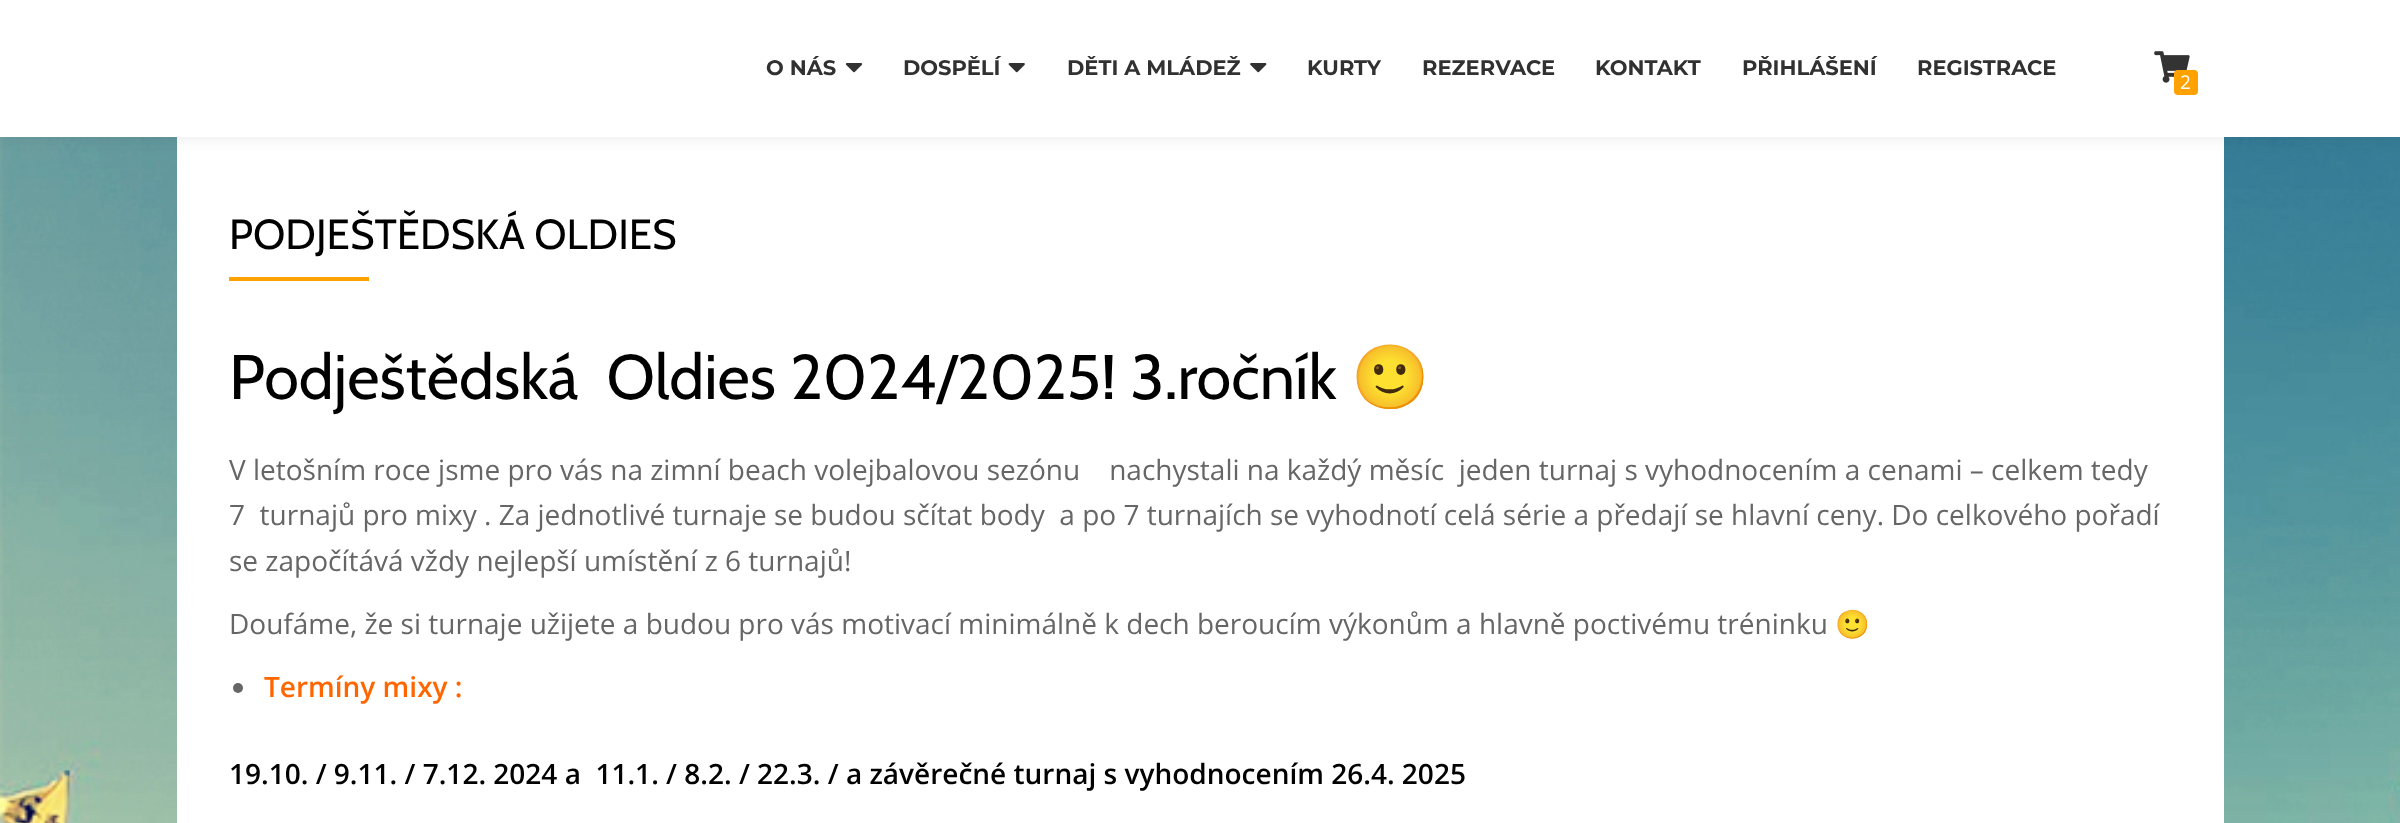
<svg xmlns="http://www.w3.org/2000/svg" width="2400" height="823">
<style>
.a{font:bold 21px Montserrat;fill:#313131}
.b{font:19px Open Sans;fill:#fff}
.c{font:42px Cabin;fill:#000}
.d{font:63px Cabin;fill:#000}
.e{font:63px Noto Color Emoji;fill:#000}
.f{font:28px Open Sans;fill:#666}
.g{font:28px Noto Color Emoji;fill:#666}
.h{font:600 28px Open Sans;fill:#f60}
.i{font:600 28px Open Sans;fill:#000}
</style>
<rect width="100%" height="100%" fill="#fff"/>
<image href="1.png" x="0" y="137" width="2400" height="686"/>
<path fill="#fff" d="M177 137h2047v686H177z"/>
<path fill="#32323214" filter="blur(7px)" d="M0 4h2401v136H0z"/>
<path fill="#fff" d="M0 0h2400v137H0z"/>
<image href="2.png" x="845" y="63" width="18" height="10"/>
<image href="3.png" x="1008" y="63" width="17" height="10"/>
<image href="4.png" x="1250" y="63" width="17" height="10"/>
<image href="5.png" x="2154" y="51" width="36" height="32"/>
<rect fill="#ffa200" x="2174" y="70" width="24" height="25" rx="4"/>
<path fill="#ffa200" d="M229 277h140v4H229z"/>
<circle fill="#666" cx="238" cy="688" r="5"/>
<text class="a" x="766" y="75">O NÁS</text>
<text class="a" x="903" y="75">DOSPĚLÍ</text>
<text class="a" x="1067" y="75">DĚTI A MLÁDEŽ</text>
<text class="a" x="1307" y="75">KURTY</text>
<text class="a" x="1422" y="75">REZERVACE</text>
<text class="a" x="1595" y="75">KONTAKT</text>
<text class="a" x="1742" y="75">PŘIHLÁŠENÍ</text>
<text class="a" x="1917" y="75">REGISTRACE</text>
<text class="b" x="2180" y="89">2</text>
<text class="c" x="229" y="249">PODJEŠTĚDSKÁ OLDIES</text>
<text class="d" xml:space="preserve" x="229" y="399">Podještědská  Oldies 2024/2025! 3.ročník</text>
<text class="e" x="1351" y="399">🙂</text>
<text class="f" xml:space="preserve" x="229" y="480">V letošním roce jsme pro vás na zimní beach volejbalovou sezónu    nachystali na každý měsíc  jeden turnaj s vyhodnocením a cenami – celkem tedy</text>
<text class="f" xml:space="preserve" x="229" y="525">7  turnajů pro mixy . Za jednotlivé turnaje se budou sčítat body  a po 7 turnajích se vyhodnotí celá série a předají se hlavní ceny. Do celkového pořadí</text>
<text class="f" x="229" y="571">se započítává vždy nejlepší umístění z 6 turnajů!</text>
<text class="f" x="229" y="634">Doufáme, že si turnaje užijete a budou pro vás motivací minimálně k dech beroucím výkonům a hlavně poctivému tréninku</text>
<text class="g" x="1835" y="634">🙂</text>
<text class="h" x="264" y="697">Termíny mixy :</text>
<text class="i" xml:space="preserve" x="229" y="784">19.10. / 9.11. / 7.12. 2024 a  11.1. / 8.2. / 22.3. / a závěrečné turnaj s vyhodnocením 26.4. 2025</text>
</svg>
